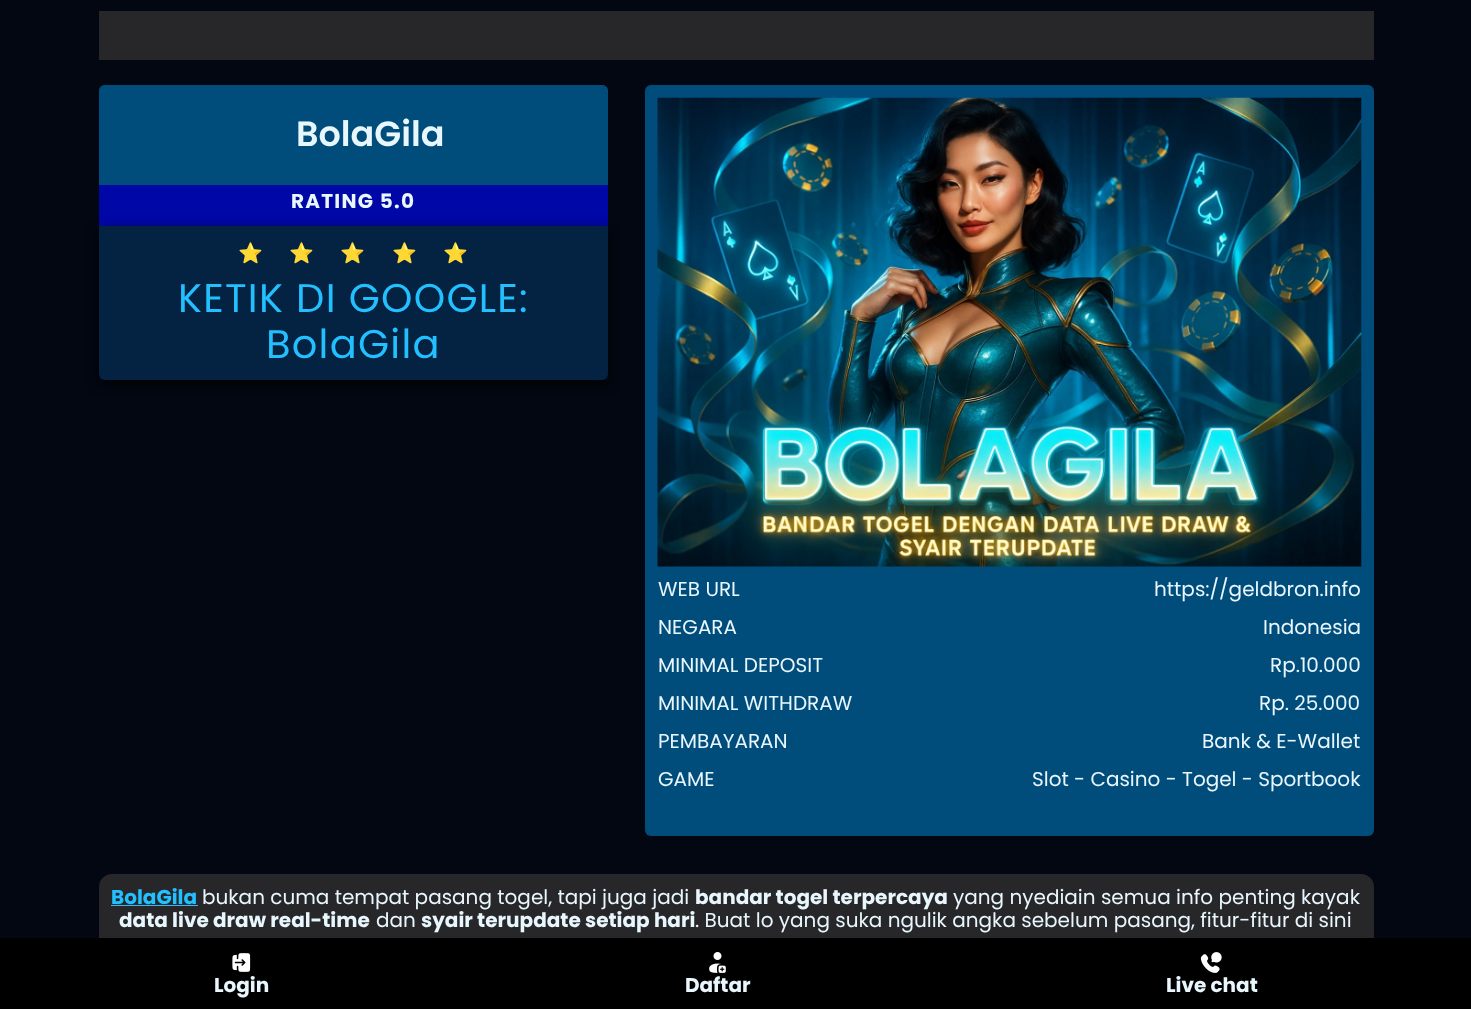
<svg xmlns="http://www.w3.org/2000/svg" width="1471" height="1009">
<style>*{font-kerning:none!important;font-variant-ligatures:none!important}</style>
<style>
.a{font:600 35px Poppins;fill:#e8f6fd}
.b{font:bold 20px Poppins;letter-spacing:1.25px;fill:#e8f6fd}
.c{font:20px Noto Color Emoji;fill:#000}
.d{font:40px Poppins;letter-spacing:1.25px;fill:#22c0ff}
.e{font:20px Poppins;fill:#e8f6fd}
.f{font:bold 20px Poppins;fill:#22c0ff}
.g{font:bold 20px Poppins;fill:#e8f6fd}
</style>
<defs>
<clipPath id="clip1"><path d="M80 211h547v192h-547zm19 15h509v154h-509z" clip-rule="evenodd"/></clipPath>
</defs>
<rect width="100%" height="100%" fill="#030712"/>
<path fill="#27272a" d="M99 11h1275v49H99z"/>
<rect fill="#042242" x="99" y="85" width="509" height="295" rx="6"/>
<path fill="#004d7b" d="M105 85h497c3.5 0 6 2.5 6 6v94h-509v-94c0-3.5 2.5-6 6-6z"/>
<path fill="#0007a7" d="M99 185h509v41H99z"/>
<g clip-path="url(#clip1)">
<path fill="#000000cc" filter="blur(6px)" d="M99 230h509v154H99z"/>
</g>
<rect fill="#004d7b" x="645" y="85" width="729" height="751" rx="6"/>
<image href="1.png" x="657" y="97" width="705" height="470"/>
<rect fill="#27272a" x="99" y="874" width="1275" height="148" rx="13"/>
<path fill="#22c0ff" d="M111 905h87v1H111z"/>
<path fill="#000" d="M0 938h1471v71H0z"/>
<image href="2.png" x="232" y="953" width="19" height="19"/>
<image href="3.png" x="709" y="952" width="17" height="21"/>
<image href="4.png" x="1200" y="952" width="22" height="21"/>
<text class="a" x="296" y="146">BolaGila</text>
<text class="b" x="291" y="208">RATING 5.0</text>
<text class="c" x="238" y="260">⭐</text>
<text class="c" x="289" y="260">⭐</text>
<text class="c" x="340" y="260">⭐</text>
<text class="c" x="392" y="260">⭐</text>
<text class="c" x="443" y="260">⭐</text>
<text class="d" x="178" y="312">KETIK DI GOOGLE:</text>
<text class="d" x="266" y="358">BolaGila</text>
<text class="e" x="658" y="596">WEB URL</text>
<text class="e" x="1154" y="596">https://geldbron.info</text>
<text class="e" x="658" y="634">NEGARA</text>
<text class="e" x="1263" y="634">Indonesia</text>
<text class="e" x="658" y="672">MINIMAL DEPOSIT</text>
<text class="e" x="1270" y="672">Rp.10.000</text>
<text class="e" x="658" y="710">MINIMAL WITHDRAW</text>
<text class="e" x="1259" y="710">Rp. 25.000</text>
<text class="e" x="658" y="748">PEMBAYARAN</text>
<text class="e" x="1202" y="748">Bank &amp; E-Wallet</text>
<text class="e" x="658" y="786">GAME</text>
<text class="e" x="1032" y="786">Slot - Casino - Togel - Sportbook</text>
<text class="f" x="111" y="904">BolaGila</text>
<text class="e" x="202" y="904">bukan cuma tempat pasang togel, tapi juga jadi</text>
<text class="g" x="695" y="904">bandar togel terpercaya</text>
<text class="e" x="953" y="904">yang nyediain semua info penting kayak</text>
<text class="g" x="119" y="927">data live draw real-time</text>
<text class="e" x="376" y="927">dan</text>
<text class="g" x="421" y="927">syair terupdate setiap hari</text>
<text class="e" x="695" y="927">. Buat lo yang suka ngulik angka sebelum pasang, fitur-fitur di sini</text>
<text class="g" x="214" y="992">Login</text>
<text class="g" x="685" y="992">Daftar</text>
<text class="g" x="1166" y="992">Live chat</text>
</svg>
